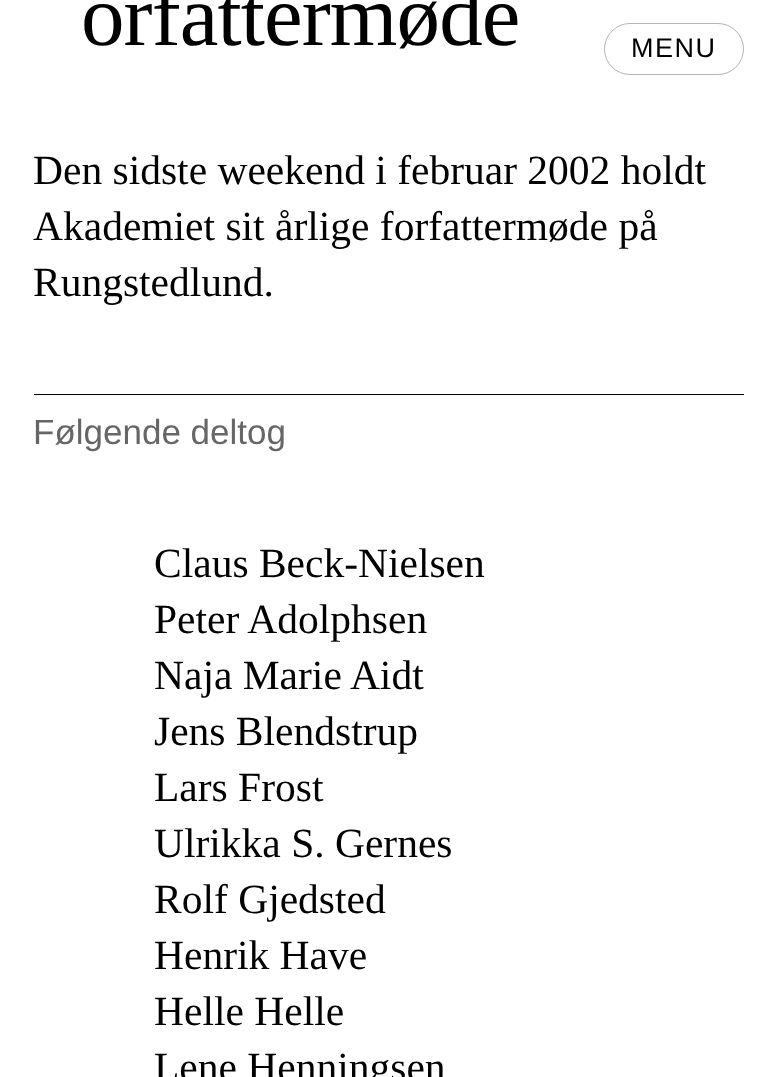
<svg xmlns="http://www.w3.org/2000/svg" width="777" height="1077">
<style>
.a{font:87px Liberation Serif;letter-spacing:-0.9px;fill:#000}
.b{font:41.5px Liberation Serif;fill:#000}
.c{font:35px Liberation Sans;fill:#666}
.d{font:27px Liberation Sans;letter-spacing:1.5px;fill:#000}
</style>
<rect width="100%" height="100%" fill="#fff"/>
<path fill="#000" d="M34 394h710v1H34z"/>
<rect fill="none" stroke="#b6b6b6" x="604.5" y="23.5" width="139" height="51" rx="25.5"/>
<text class="a" x="81" y="45">orfattermøde</text>
<text class="b" x="33" y="184">Den sidste weekend i februar 2002 holdt</text>
<text class="b" x="33" y="240">Akademiet sit årlige forfattermøde på</text>
<text class="b" x="33" y="296">Rungstedlund.</text>
<text class="c" x="33" y="444">Følgende deltog</text>
<text class="b" x="154" y="577">Claus Beck-Nielsen</text>
<text class="b" x="154" y="633">Peter Adolphsen</text>
<text class="b" x="154" y="689">Naja Marie Aidt</text>
<text class="b" x="154" y="745">Jens Blendstrup</text>
<text class="b" x="154" y="801">Lars Frost</text>
<text class="b" x="154" y="857">Ulrikka S. Gernes</text>
<text class="b" x="154" y="913">Rolf Gjedsted</text>
<text class="b" x="154" y="969">Henrik Have</text>
<text class="b" x="154" y="1025">Helle Helle</text>
<text class="b" x="154" y="1081">Lene Henningsen</text>
<text class="d" x="631" y="57">MENU</text>
</svg>
